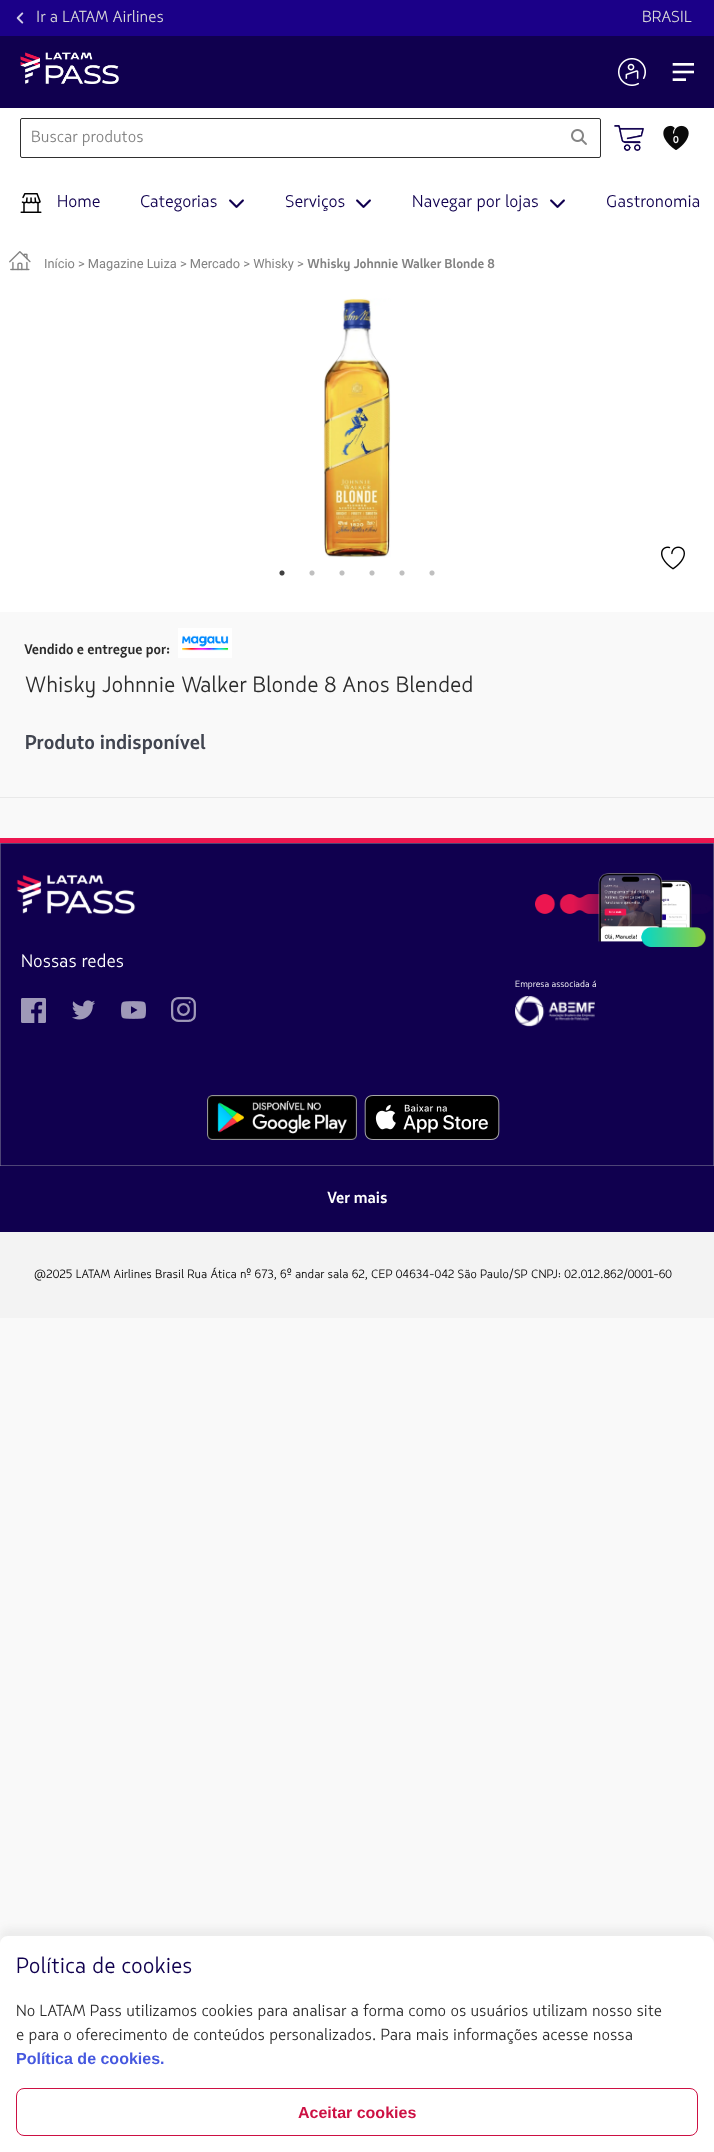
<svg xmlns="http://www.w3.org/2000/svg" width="714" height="2152">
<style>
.a{font:16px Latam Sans;fill:#d8d8d8}
.b{font:16px Latam Sans;fill:#828282}
.c{font:bold 10px Latam Sans;fill:#f9f9f9}
.d{font:17px Latam Sans;fill:#10004f}
.e{font:12.8px Roboto;fill:#828282}
.f{font:bold 13px Latam Sans;fill:#828282}
.g{font:bold 14px Latam Sans;fill:#2b2b2b}
.h{font:22px Latam Sans;fill:#2b2b2b}
.i{font:bold 20px Latam Sans;fill:#414550}
.j{font:18px Latam Sans;fill:#fff}
.k{font:9px Latam Sans;fill:#fff}
.l{font:bold 16px Latam Sans;fill:#fff}
.m{font:12px Latam Sans;fill:#000}
.n{font:22px Latam Sans;fill:#10004f}
.o{font:16px Latam Sans;fill:#2b2b2b}
.p{font:bold 16px Liberation Sans;fill:#4658df}
.q{font:bold 16px Liberation Sans;fill:#cd1043}
</style>
<rect width="100%" height="100%" fill="#f9f9f9"/>
<path fill="#1b0088" d="M0 0h714v36H0z"/>
<image href="1.png" x="16" y="12" width="8" height="12"/>
<path fill="#10004f" d="M0 36h714v72H0z"/>
<image href="2.png" x="20" y="52" width="99" height="32"/>
<image href="3.png" x="618" y="58" width="28" height="28"/>
<image href="4.png" x="672" y="63" width="22" height="18"/>
<path fill="#fff" d="M0 108h714v504H0z"/>
<rect fill="none" stroke="#2f2f2f" x="20.5" y="118.5" width="580" height="39" rx="1.5"/>
<image href="5.png" x="571" y="129" width="16" height="16"/>
<image href="6.png" x="614" y="125" width="30" height="26"/>
<image href="7.png" x="663" y="125" width="26" height="25"/>
<image href="8.png" x="20" y="193" width="22" height="20"/>
<image href="9.png" x="229" y="199" width="15" height="9"/>
<image href="9.png" x="356" y="199" width="15" height="9"/>
<image href="9.png" x="550" y="199" width="15" height="9"/>
<path fill="#e9e9e9" d="M0 797h714v1H0z"/>
<image href="10.png" x="9" y="251" width="22" height="20"/>
<image href="11.png" x="323" y="298" width="68" height="260"/>
<image href="12.png" x="279" y="570" width="6" height="6"/>
<image href="13.png" x="309" y="570" width="6" height="6"/>
<image href="13.png" x="339" y="570" width="6" height="6"/>
<image href="13.png" x="369" y="570" width="6" height="6"/>
<image href="13.png" x="399" y="570" width="6" height="6"/>
<image href="13.png" x="429" y="570" width="6" height="6"/>
<image href="14.png" x="661" y="546" width="24" height="24"/>
<image href="15.png" x="178" y="628" width="54" height="30"/>
<path fill="#ed1650" d="M0 838h714v5H0z"/>
<path fill="#10004f" stroke="#4d4476" d="M0.5 843.5h713v322H0.5z"/>
<image href="16.png" x="16" y="874" width="120" height="41"/>
<image href="17.png" x="21" y="998" width="25" height="25"/>
<image href="18.png" x="72" y="1000" width="23" height="20"/>
<image href="19.png" x="121" y="1001" width="25" height="18"/>
<image href="20.png" x="171" y="997" width="25" height="25"/>
<image href="21.png" x="535" y="873" width="178" height="74"/>
<image href="22.png" x="515" y="996" width="80" height="31"/>
<image href="23.png" x="207" y="1095" width="150" height="45"/>
<image href="24.png" x="364" y="1095" width="136" height="45"/>
<path fill="#10004f" d="M0 1166h714v66H0z"/>
<path fill="#f3f3f3" d="M0 1232h714v86H0z"/>
<rect fill="#5c5c5c14" filter="blur(4px)" y="1928" width="714" height="216" rx="8"/>
<path fill="#fff" d="M8 1936h698c4.5 0 8 3.5 8 8v208h-714v-208c0-4.5 3.5-8 8-8z"/>
<rect fill="none" stroke="#cd1043" x="16.5" y="2088.5" width="681" height="47" rx="7.5"/>
<text class="a" x="36" y="22">Ir a LATAM Airlines</text>
<text class="a" x="642" y="22">BRASIL</text>
<text class="b" x="31" y="142">Buscar produtos</text>
<text class="c" x="673" y="143">0</text>
<text class="d" x="57" y="207">Home</text>
<text class="d" x="140" y="207">Categorias</text>
<text class="d" x="285" y="207">Serviços</text>
<text class="d" x="412" y="207">Navegar por lojas</text>
<text class="d" x="606" y="207">Gastronomia</text>
<text class="e" x="44" y="268">Início &gt; Magazine Luiza &gt; Mercado &gt; Whisky &gt;</text>
<text class="f" x="307" y="268">Whisky Johnnie Walker Blonde 8</text>
<text class="g" x="24" y="654">Vendido e entregue por:</text>
<text class="h" x="25" y="692">Whisky Johnnie Walker Blonde 8 Anos Blended</text>
<text class="i" x="25" y="749">Produto indisponível</text>
<text class="j" x="21" y="967">Nossas redes</text>
<text class="k" x="515" y="987">Empresa associada á</text>
<text class="l" x="327" y="1203">Ver mais</text>
<text class="m" x="34" y="1278">@2025 LATAM Airlines Brasil Rua Ática nº 673, 6º andar sala 62, CEP 04634-042 São Paulo/SP CNPJ: 02.012.862/0001-60</text>
<text class="n" x="16" y="1973">Política de cookies</text>
<text class="o" x="16" y="2016">No LATAM Pass utilizamos cookies para analisar a forma como os usuários utilizam nosso site</text>
<text class="o" x="16" y="2040">e para o oferecimento de conteúdos personalizados. Para mais informações acesse nossa</text>
<text class="p" x="16" y="2064">Política de cookies.</text>
<text class="q" x="298" y="2118">Aceitar cookies</text>
</svg>
